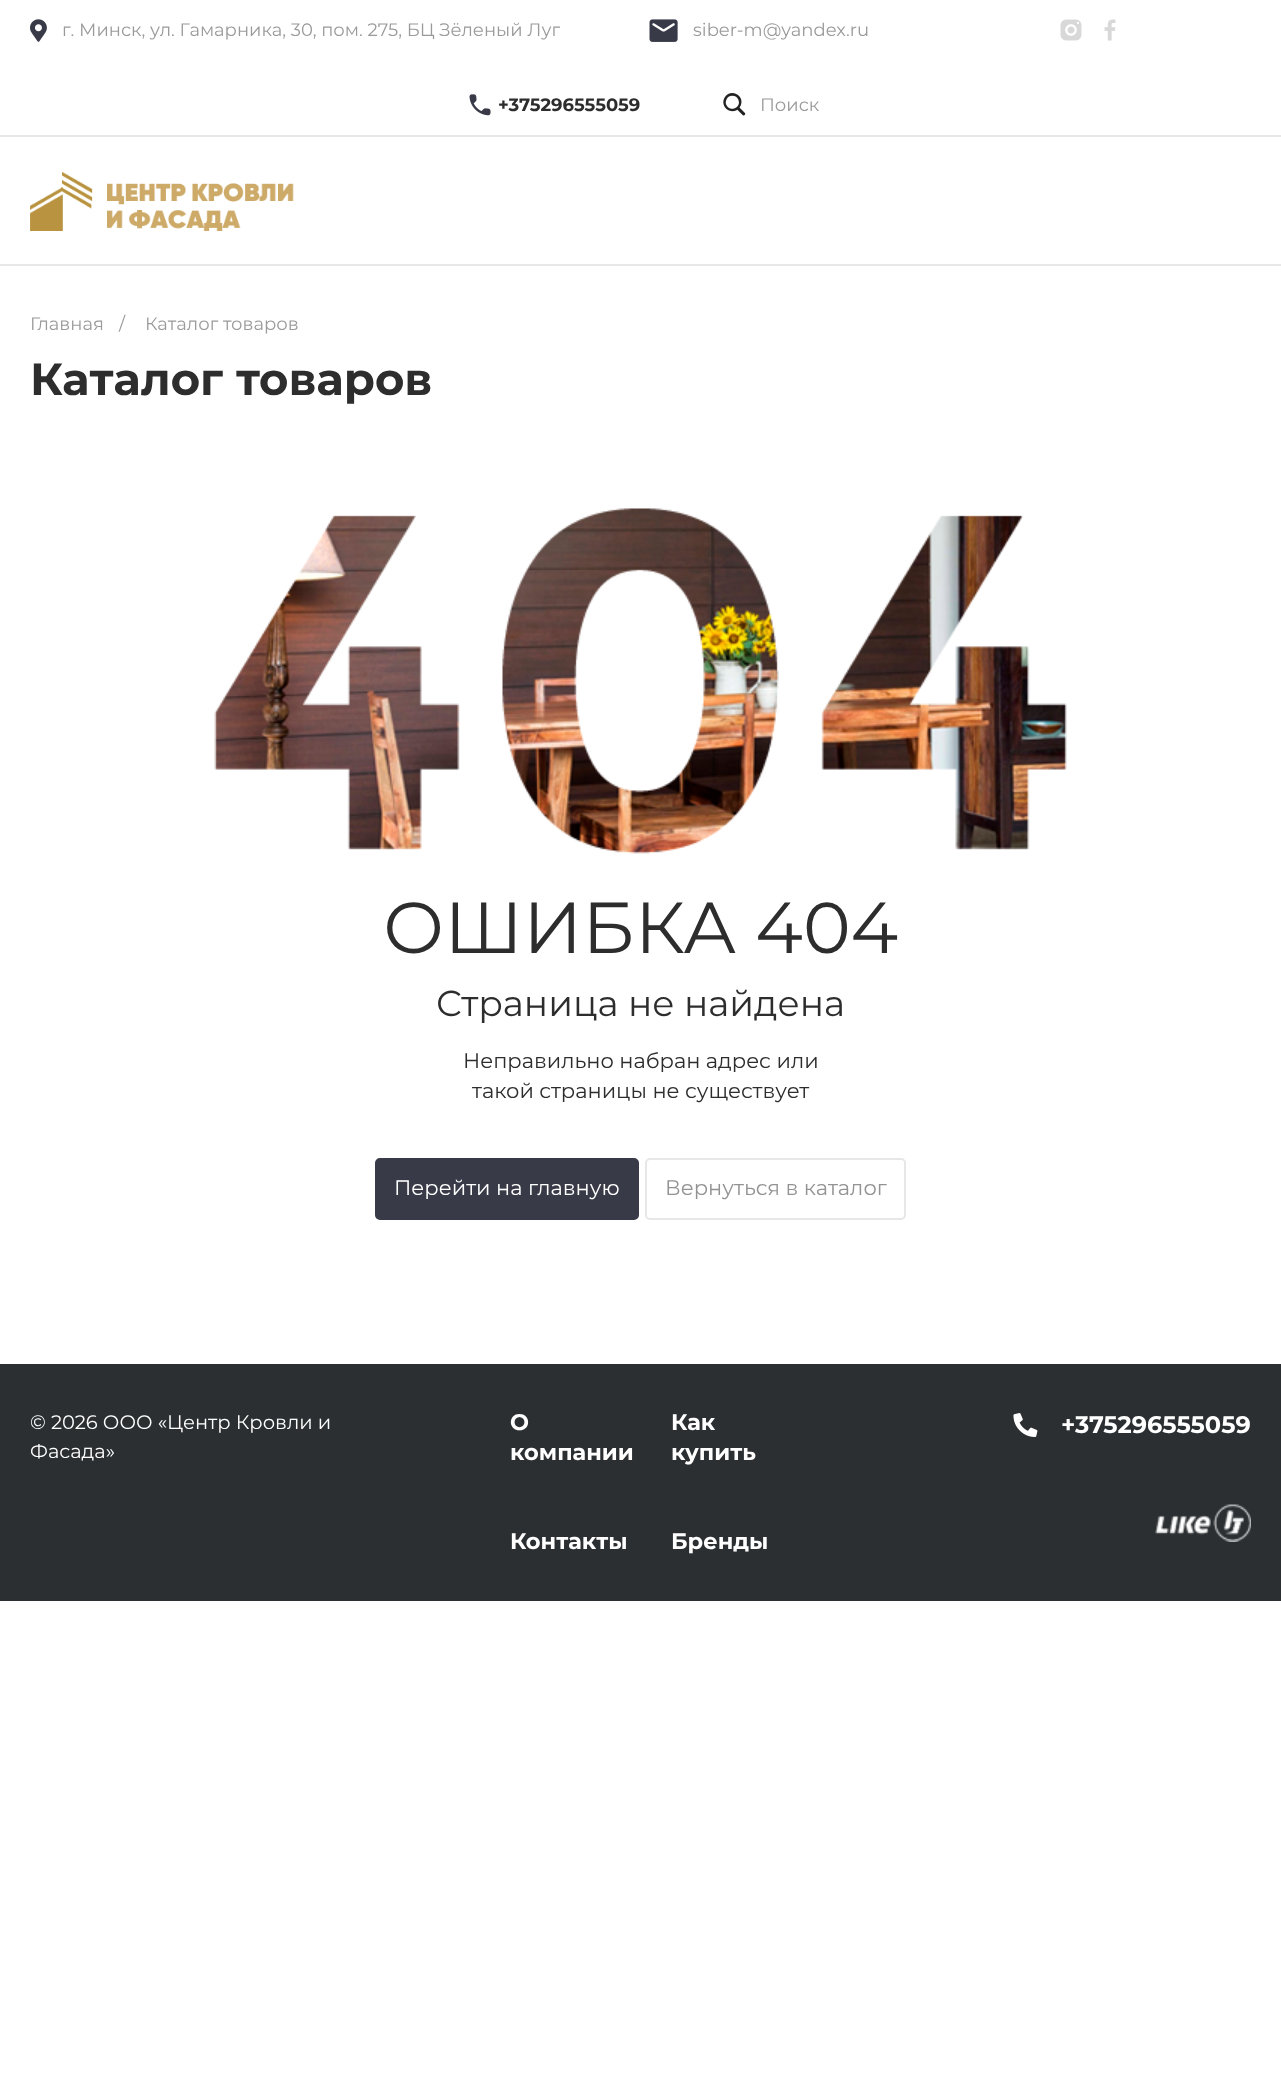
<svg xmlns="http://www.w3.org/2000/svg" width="1281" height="2077">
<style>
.a{font:18px Montserrat;fill:#9a9a9a}
.b{font:bold 18px Montserrat;fill:#2d2d2d}
.c{font:bold 45px Montserrat;fill:#2d2d2d}
.d{font:72px Montserrat;fill:#2d2d2d}
.e{font:36px Montserrat;fill:#2d2d2d}
.f{font:21px Montserrat;fill:#2d2d2d}
.g{font:21px Montserrat;fill:#fff}
.h{font:21px Montserrat;fill:#939393}
.i{font:19.5px Montserrat;fill:#fff}
.j{font:bold 22.5px Montserrat;fill:#fff}
.k{font:bold 24px Montserrat;fill:#fff}
</style>
<rect width="100%" height="100%" fill="#fff"/>
<path fill="#e8e8e8" d="M0 135h1281v2H0z"/>
<image href="1.png" x="30" y="19" width="17" height="23"/>
<image href="2.png" x="649" y="19" width="29" height="23"/>
<image href="3.png" x="1060" y="19" width="22" height="22"/>
<image href="4.png" x="1104" y="19" width="12" height="22"/>
<image href="5.png" x="469" y="94" width="22" height="22"/>
<image href="6.png" x="723" y="93" width="23" height="23"/>
<path fill="#e8e8e8" d="M0 264h1281v2H0z"/>
<image href="7.png" x="30" y="172" width="264" height="59"/>
<image href="8.png" x="214" y="508" width="853" height="346"/>
<rect fill="#383b47" stroke="#383b47" stroke-width="2" x="376" y="1159" width="262" height="60" rx="4"/>
<rect fill="none" stroke="#e7e7e7" stroke-width="2" x="646" y="1159" width="259" height="60" rx="4"/>
<path fill="#2b2f32" d="M0 1364h1281v237H0z"/>
<image href="9.png" x="1013" y="1413" width="25" height="24"/>
<image href="10.png" x="1155" y="1504" width="96" height="38"/>
<text class="a" x="62" y="36">г. Минск, ул. Гамарника, 30, пом. 275, БЦ Зёленый Луг</text>
<text class="a" x="693" y="36">siber-m@yandex.ru</text>
<text class="b" x="498" y="111">+375296555059</text>
<text class="a" x="760" y="111">Поиск</text>
<text class="a" x="30" y="330">Главная</text>
<text class="a" x="119" y="330">/</text>
<text class="a" x="145" y="330">Каталог товаров</text>
<text class="c" x="30" y="395">Каталог товаров</text>
<text class="d" x="383" y="953">ОШИБКА 404</text>
<text class="e" x="436" y="1016">Страница не найдена</text>
<text class="f" x="463" y="1068">Неправильно набран адрес или</text>
<text class="f" x="472" y="1098">такой страницы не существует</text>
<text class="g" x="394" y="1195">Перейти на главную</text>
<text class="h" x="665" y="1195">Вернуться в каталог</text>
<text class="i" x="30" y="1429">© 2026 ООО «Центр Кровли и</text>
<text class="i" x="30" y="1458">Фасада»</text>
<text class="j" x="510" y="1430">О</text>
<text class="j" x="510" y="1460">компании</text>
<text class="j" x="671" y="1430">Как</text>
<text class="j" x="671" y="1460">купить</text>
<text class="j" x="510" y="1549">Контакты</text>
<text class="j" x="671" y="1549">Бренды</text>
<text class="k" x="1061" y="1433">+375296555059</text>
</svg>
